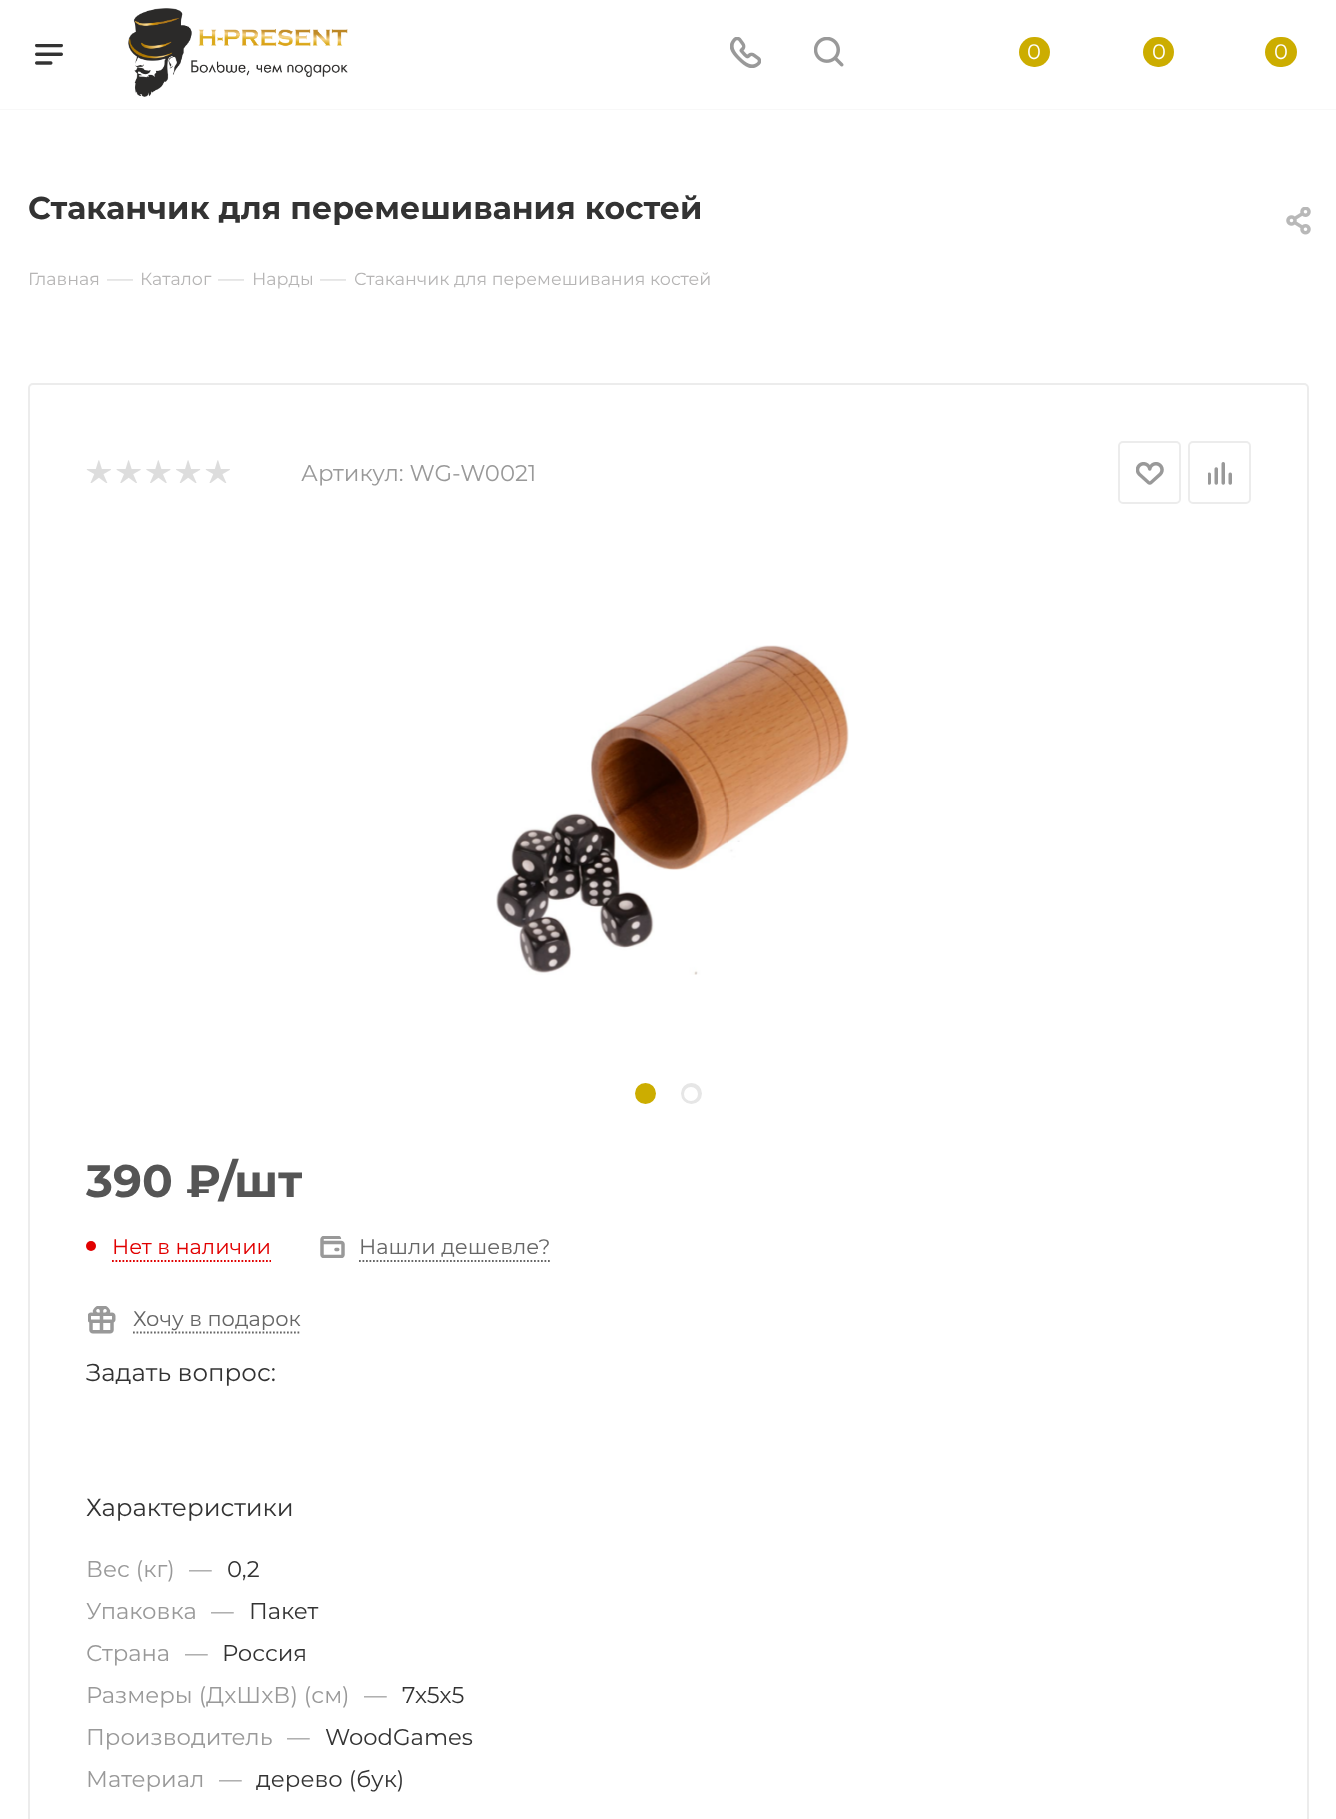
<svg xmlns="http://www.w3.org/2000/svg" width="1336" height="1819">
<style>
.a{font:21px Montserrat;fill:#fff}
.b{font:bold 31.5px Montserrat;fill:#333}
.c{font:17.5px Montserrat;fill:#b6b5b5}
.d{font:26px Montserrat;fill:#ddd}
.e{font:22.75px Montserrat;fill:#999}
.f{font:bold 45.5px Montserrat;fill:#555}
.g{font:21px Montserrat;fill:#e10000}
.h{font:21px Montserrat;fill:#666}
.i{font:24.5px Montserrat;fill:#333}
.j{font:22.75px Montserrat;fill:#333}
</style>
<rect width="100%" height="100%" fill="#fff"/>
<path fill="#f8f8f8" d="M0 109h1336v1H0z"/>
<image href="1.png" x="35" y="44" width="28" height="21"/>
<image href="2.png" x="128" y="8" width="220" height="89"/>
<image href="3.png" x="730" y="37" width="31" height="31"/>
<image href="4.png" x="814" y="37" width="30" height="30"/>
<rect fill="#ccad00" x="1019" y="37" width="31" height="30" rx="15"/>
<rect fill="#ccad00" x="1143" y="37" width="31" height="30" rx="15"/>
<rect fill="#ccad00" x="1265" y="37" width="32" height="30" rx="15"/>
<image href="5.png" x="1286" y="207" width="25" height="28"/>
<rect fill="none" stroke="#ececec" stroke-width="2" x="29" y="384" width="1279" height="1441" rx="4"/>
<image href="6.png" x="86" y="460" width="25" height="23"/>
<image href="7.png" x="116" y="460" width="25" height="23"/>
<image href="8.png" x="146" y="460" width="25" height="23"/>
<image href="9.png" x="176" y="460" width="25" height="23"/>
<image href="6.png" x="205" y="460" width="25" height="23"/>
<rect fill="none" stroke="#ececec" stroke-width="2" x="1119" y="442" width="61" height="61" rx="4"/>
<image href="10.png" x="1136" y="462" width="28" height="23"/>
<rect fill="none" stroke="#ececec" stroke-width="2" x="1189" y="442" width="61" height="61" rx="4"/>
<image href="11.png" x="1208" y="462" width="24" height="23"/>
<image href="12.png" x="496" y="645" width="353" height="330"/>
<circle fill="#ccad00" cx="645.5" cy="1093.5" r="10.5"/>
<circle fill="#e6e6e6" cx="691.5" cy="1093.5" r="10.5"/>
<circle fill="#fff" cx="691" cy="1094" r="7"/>
<circle fill="#e10000" cx="91" cy="1246" r="5"/>
<path fill="none" stroke="#e10000" stroke-width="1.8" stroke-dasharray="1.75 1.75" d="M112 1261h159"/>
<image href="13.png" x="320" y="1236" width="25" height="22"/>
<path fill="none" stroke="#666" stroke-width="1.8" stroke-dasharray="1.75 1.75" d="M359 1261h192"/>
<image href="14.png" x="88" y="1306" width="28" height="28"/>
<path fill="none" stroke="#666" stroke-width="1.8" stroke-dasharray="1.75 1.75" d="M133 1332.5h168"/>
<text class="a" x="1027" y="59">0</text>
<text class="a" x="1152" y="59">0</text>
<text class="a" x="1274" y="59">0</text>
<text class="b" x="28" y="219">Стаканчик для перемешивания костей</text>
<text class="c" x="28" y="285">Главная</text>
<text class="d" x="107" y="287">—</text>
<text class="c" x="140" y="285">Каталог</text>
<text class="d" x="218" y="287">—</text>
<text class="c" x="252" y="285">Нарды</text>
<text class="d" x="320" y="287">—</text>
<text class="c" x="354" y="285">Стаканчик для перемешивания костей</text>
<text class="e" x="301" y="481">Артикул: WG-W0021</text>
<text class="f" x="86" y="1197">390 ₽/шт</text>
<text class="g" x="112" y="1254">Нет в наличии</text>
<text class="h" x="359" y="1254">Нашли дешевле?</text>
<text class="h" x="133" y="1326">Хочу в подарок</text>
<text class="i" x="86" y="1381">Задать вопрос:</text>
<text class="i" x="86" y="1516">Характеристики</text>
<text class="e" x="86" y="1577">Вес (кг)</text>
<text class="e" x="189" y="1577">—</text>
<text class="j" x="227" y="1577">0,2</text>
<text class="e" x="86" y="1619">Упаковка</text>
<text class="e" x="211" y="1619">—</text>
<text class="j" x="249" y="1619">Пакет</text>
<text class="e" x="86" y="1661">Страна</text>
<text class="e" x="185" y="1661">—</text>
<text class="j" x="222" y="1661">Россия</text>
<text class="e" x="86" y="1703">Размеры (ДxШxВ) (см)</text>
<text class="e" x="364" y="1703">—</text>
<text class="j" x="402" y="1703">7х5х5</text>
<text class="e" x="86" y="1745">Производитель</text>
<text class="e" x="287" y="1745">—</text>
<text class="j" x="325" y="1745">WoodGames</text>
<text class="e" x="86" y="1787">Материал</text>
<text class="e" x="219" y="1787">—</text>
<text class="j" x="256" y="1787">дерево (бук)</text>
</svg>
